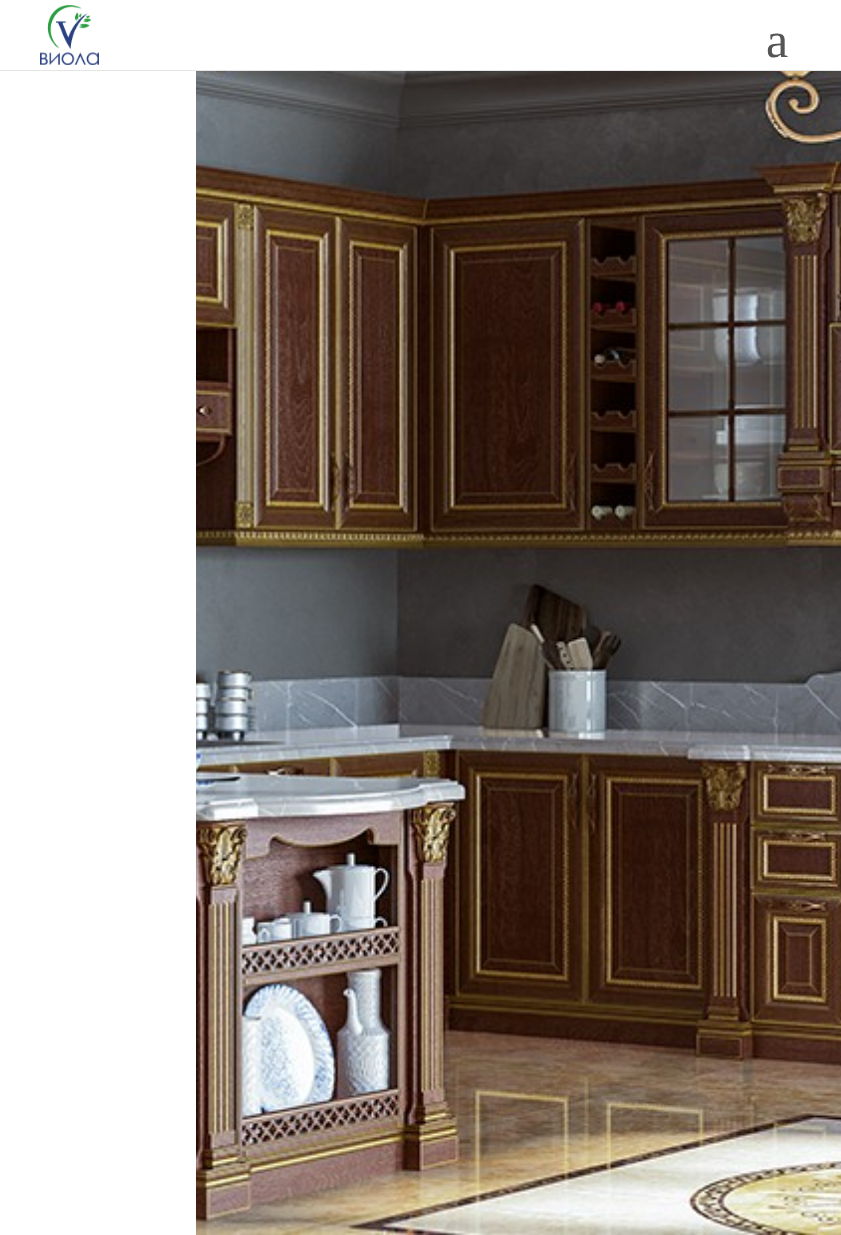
<svg xmlns="http://www.w3.org/2000/svg" width="841" height="1235">
<style>
.a{font:50px Liberation Serif;letter-spacing:2px;fill:#555}
</style>
<rect width="100%" height="100%" fill="#fff"/>
<path fill="#e5e5e5" d="M0 70h841v1H0z"/>
<image href="1.png" x="40" y="5" width="59" height="60"/>
<image href="2.png" x="196" y="71" width="645" height="1164"/>
<text class="a" x="766" y="57">a</text>
</svg>
